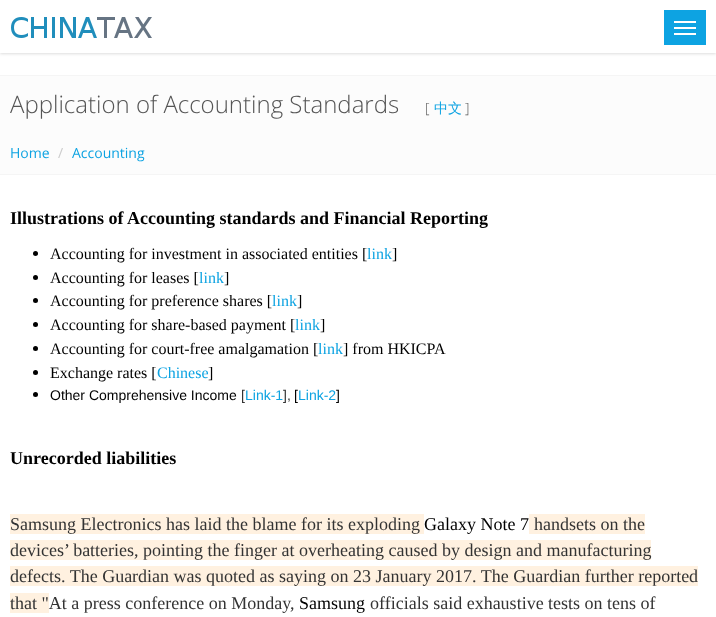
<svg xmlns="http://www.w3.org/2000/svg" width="716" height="617">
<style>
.a{font:300 24px Open Sans;fill:#555}
.b{font:300 14px Open Sans;fill:#555}
.c{font:500 14px WenQuanYi Zen Hei;fill:#0da3e2}
.d{font:14px Open Sans;fill:#0da3e2}
.e{font:14px Open Sans;fill:#ccc}
.f{font:bold 18px Liberation Serif;fill:#000}
.g{font:16px Liberation Serif;fill:#000}
.h{font:16px Liberation Serif;fill:#0da3e2}
.i{font:14px Liberation Sans;fill:#000}
.j{font:14px Liberation Sans;fill:#333}
.k{font:14px Liberation Sans;fill:#0da3e2}
.l{font:18px Liberation Serif;fill:#333}
.m{font:18px Liberation Serif;fill:#000}
</style>
<defs>
<clipPath id="clip1"><path d="M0 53h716v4H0z"/></clipPath>
</defs>
<rect width="100%" height="100%" fill="#fff"/>
<g clip-path="url(#clip1)">
<path fill="#ddd" filter="blur(1.5px)" d="M0 1h716v53H0z"/>
</g>
<image href="1.png" x="11" y="17" width="141" height="21"/>
<path fill="#0da3e2" d="M664 10h42v35H664z"/>
<path fill="#fff" d="M674 21h22v2H674z"/>
<path fill="#fff" d="M674 27h22v2H674z"/>
<path fill="#fff" d="M674 33h22v2H674z"/>
<path fill="#fcfcfc" d="M0 76h716v98H0z"/>
<path fill="#f5f5f5" d="M0 75h716v1H0z"/>
<path fill="#f5f5f5" d="M0 174h716v1H0z"/>
<circle fill="#000" cx="35.5" cy="253.5" r="2.5"/>
<circle fill="#000" cx="35.5" cy="277.5" r="2.5"/>
<circle fill="#000" cx="35.5" cy="300.5" r="2.5"/>
<circle fill="#000" cx="35.5" cy="324.5" r="2.5"/>
<circle fill="#000" cx="35.5" cy="348.5" r="2.5"/>
<circle fill="#000" cx="35.5" cy="372.5" r="2.5"/>
<circle fill="#000" cx="35.5" cy="394.5" r="2.5"/>
<path fill="#fff1e0" d="M10 514h414v20H10z"/>
<path fill="#fff1e0" d="M529 514h116v20H529z"/>
<path fill="#fff1e0" d="M10 540h641v20H10z"/>
<path fill="#fff1e0" d="M10 566h688v20H10z"/>
<path fill="#fff1e0" d="M10 593h39v20H10z"/>
<text class="a" x="10" y="113">Application of Accounting Standards</text>
<text class="b" x="425" y="113">[</text>
<text class="c" x="434" y="113">中文</text>
<text class="b" x="465" y="113">]</text>
<text class="d" x="10" y="158">Home</text>
<text class="e" x="58" y="158">/</text>
<text class="d" x="72" y="158">Accounting</text>
<text class="f" x="10" y="224">Illustrations of Accounting standards and Financial Reporting</text>
<text class="g" x="50" y="259">Accounting for investment in associated entities [</text>
<text class="h" x="367" y="259">link</text>
<text class="g" x="392" y="259">]</text>
<text class="g" x="50" y="283">Accounting for leases [</text>
<text class="h" x="199" y="283">link</text>
<text class="g" x="224" y="283">]</text>
<text class="g" x="50" y="306">Accounting for preference shares [</text>
<text class="h" x="272" y="306">link</text>
<text class="g" x="297" y="306">]</text>
<text class="g" x="50" y="330">Accounting for share-based payment [</text>
<text class="h" x="295" y="330">link</text>
<text class="g" x="320" y="330">]</text>
<text class="g" x="50" y="354">Accounting for court-free amalgamation [</text>
<text class="h" x="318" y="354">link</text>
<text class="g" x="343" y="354">] from HKICPA</text>
<text class="g" x="50" y="378">Exchange rates [</text>
<text class="h" x="157" y="378">Chinese</text>
<text class="g" x="208" y="378">]</text>
<text class="i" x="50" y="400">Other Comprehensive Income</text>
<text class="j" x="241" y="400">[</text>
<text class="k" x="245" y="400">Link-1</text>
<text class="j" x="283" y="400">],</text>
<text class="i" x="294" y="400">[</text>
<text class="k" x="298" y="400">Link-2</text>
<text class="i" x="336" y="400">]</text>
<text class="f" x="10" y="464">Unrecorded liabilities</text>
<text class="l" x="10" y="530">Samsung Electronics has laid the blame for its exploding</text>
<text class="m" x="424" y="530">Galaxy Note 7</text>
<text class="l" x="534" y="530">handsets on the</text>
<text class="l" x="10" y="556">devices’ batteries, pointing the finger at overheating caused by design and manufacturing</text>
<text class="l" x="10" y="582">defects. The Guardian was quoted as saying on 23 January 2017. The Guardian further reported</text>
<text class="l" x="10" y="609">that "At a press conference on Monday,</text>
<text class="m" x="299" y="609">Samsung</text>
<text class="l" x="370" y="609">officials said exhaustive tests on tens of</text>
</svg>
